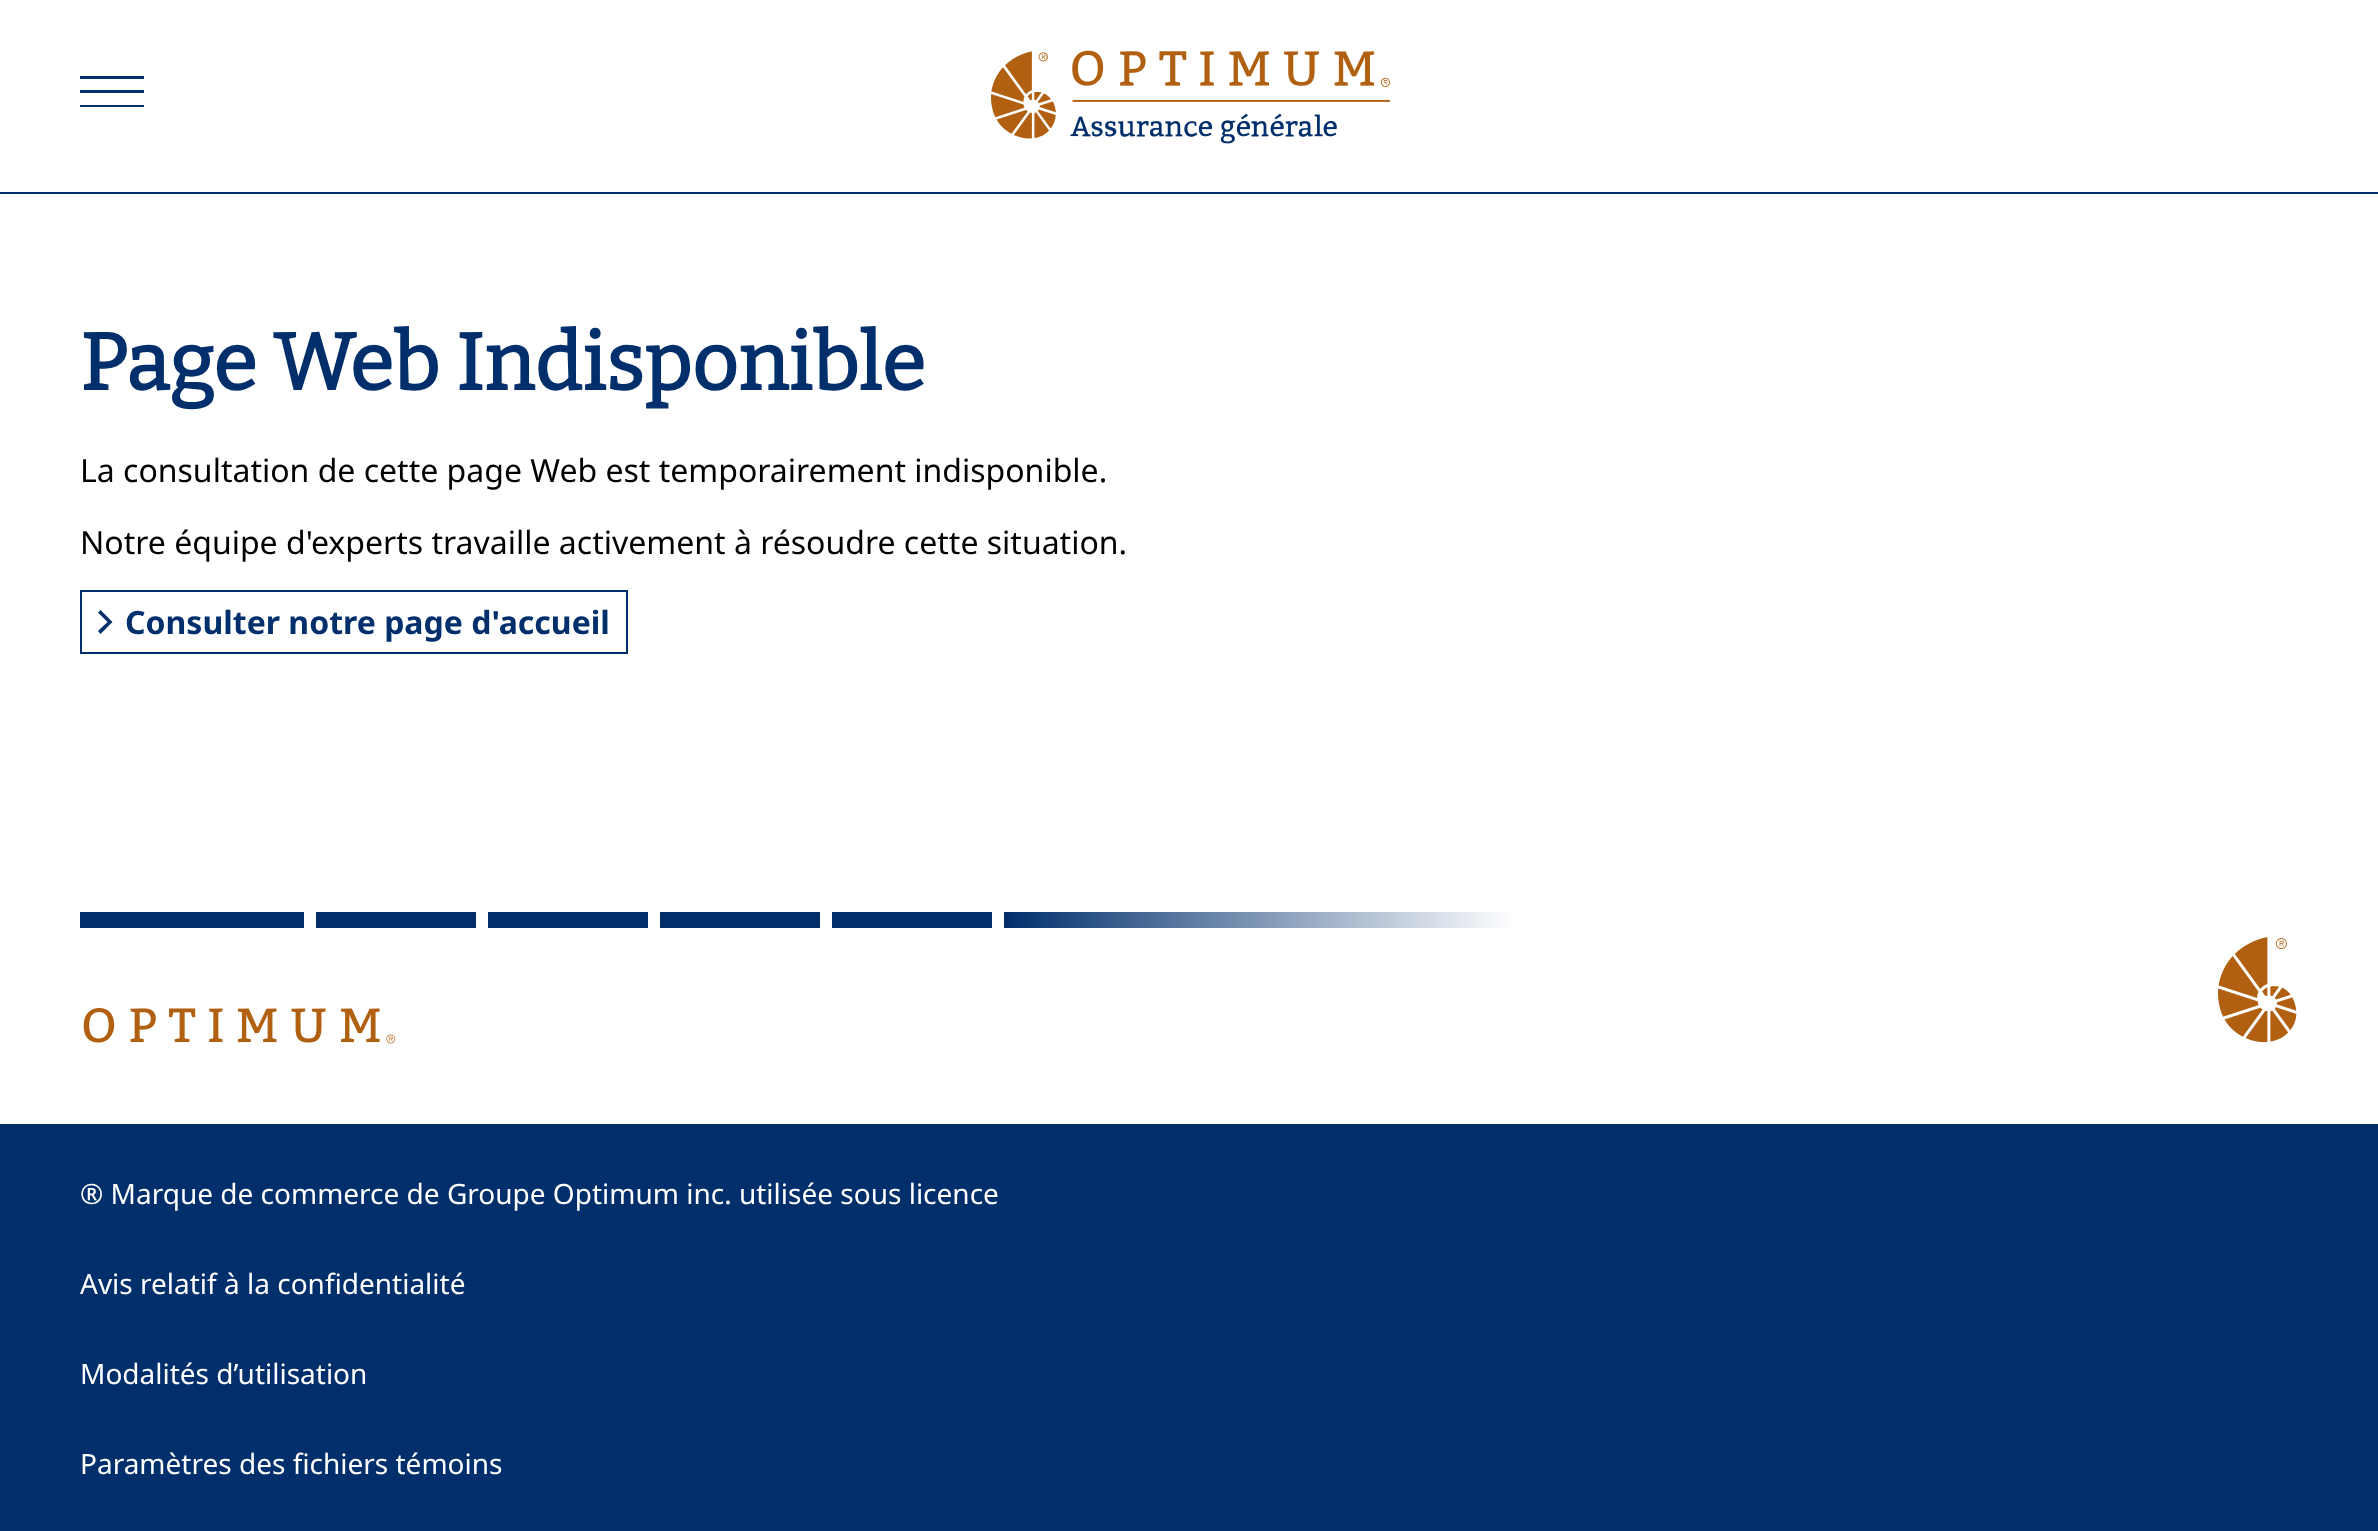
<svg xmlns="http://www.w3.org/2000/svg" width="2378" height="1531">
<style>
.a{font:bold 80px Bitter;fill:#002f6c}
.b{font:32px Noto Sans;fill:#000}
.c{font:bold 32px Noto Sans;fill:#002f6c}
.d{font:28px Noto Sans;fill:#fff}
</style>
<defs>
<linearGradient id="g1" gradientUnits="userSpaceOnUse" x1="1004" y1="920" x2="1516" y2="920"><stop offset="0" stop-color="#002f6c"/><stop offset="1" stop-color="#fff"/></linearGradient>
</defs>
<rect width="100%" height="100%" fill="#fff"/>
<path fill="#002f6c" d="M0 192h2378v2H0z"/>
<path fill="#002f6c" d="M80 76h64v3h-64zm0 14h64v3h-64zm0 15h64v2h-64z"/>
<image href="1.png" x="991" y="50" width="399" height="94"/>
<path fill="none" stroke="#002f6c" stroke-width="2" d="M81 591h546v62H81z"/>
<path fill="#002f6c" d="M100.5 634l-2.5-3l9.5-9l-9.5-9.5l2.5-2.5l12 12z"/>
<path fill="#002f6c" d="M80 912h224v16H80z"/>
<path fill="#002f6c" d="M316 912h160v16H316z"/>
<path fill="#002f6c" d="M488 912h160v16H488z"/>
<path fill="#002f6c" d="M660 912h160v16H660z"/>
<path fill="#002f6c" d="M832 912h160v16H832z"/>
<path fill="url(#g1)" d="M1004 912h507v16H1004z"/>
<image href="2.png" x="83" y="1008" width="313" height="36"/>
<image href="3.png" x="2218" y="937" width="79" height="106"/>
<path fill="#002f6c" d="M0 1124h2378v407H0z"/>
<text class="a" x="80" y="390">Page Web Indisponible</text>
<text class="b" x="80" y="482">La consultation de cette page Web est temporairement indisponible.</text>
<text class="b" x="80" y="554">Notre équipe d'experts travaille activement à résoudre cette situation.</text>
<text class="c" x="125" y="634">Consulter notre page d'accueil</text>
<text class="d" x="80" y="1204">® Marque de commerce de Groupe Optimum inc. utilisée sous licence</text>
<text class="d" x="80" y="1294">Avis relatif à la confidentialité</text>
<text class="d" x="80" y="1384">Modalités d’utilisation</text>
<text class="d" x="80" y="1474">Paramètres des fichiers témoins</text>
</svg>
